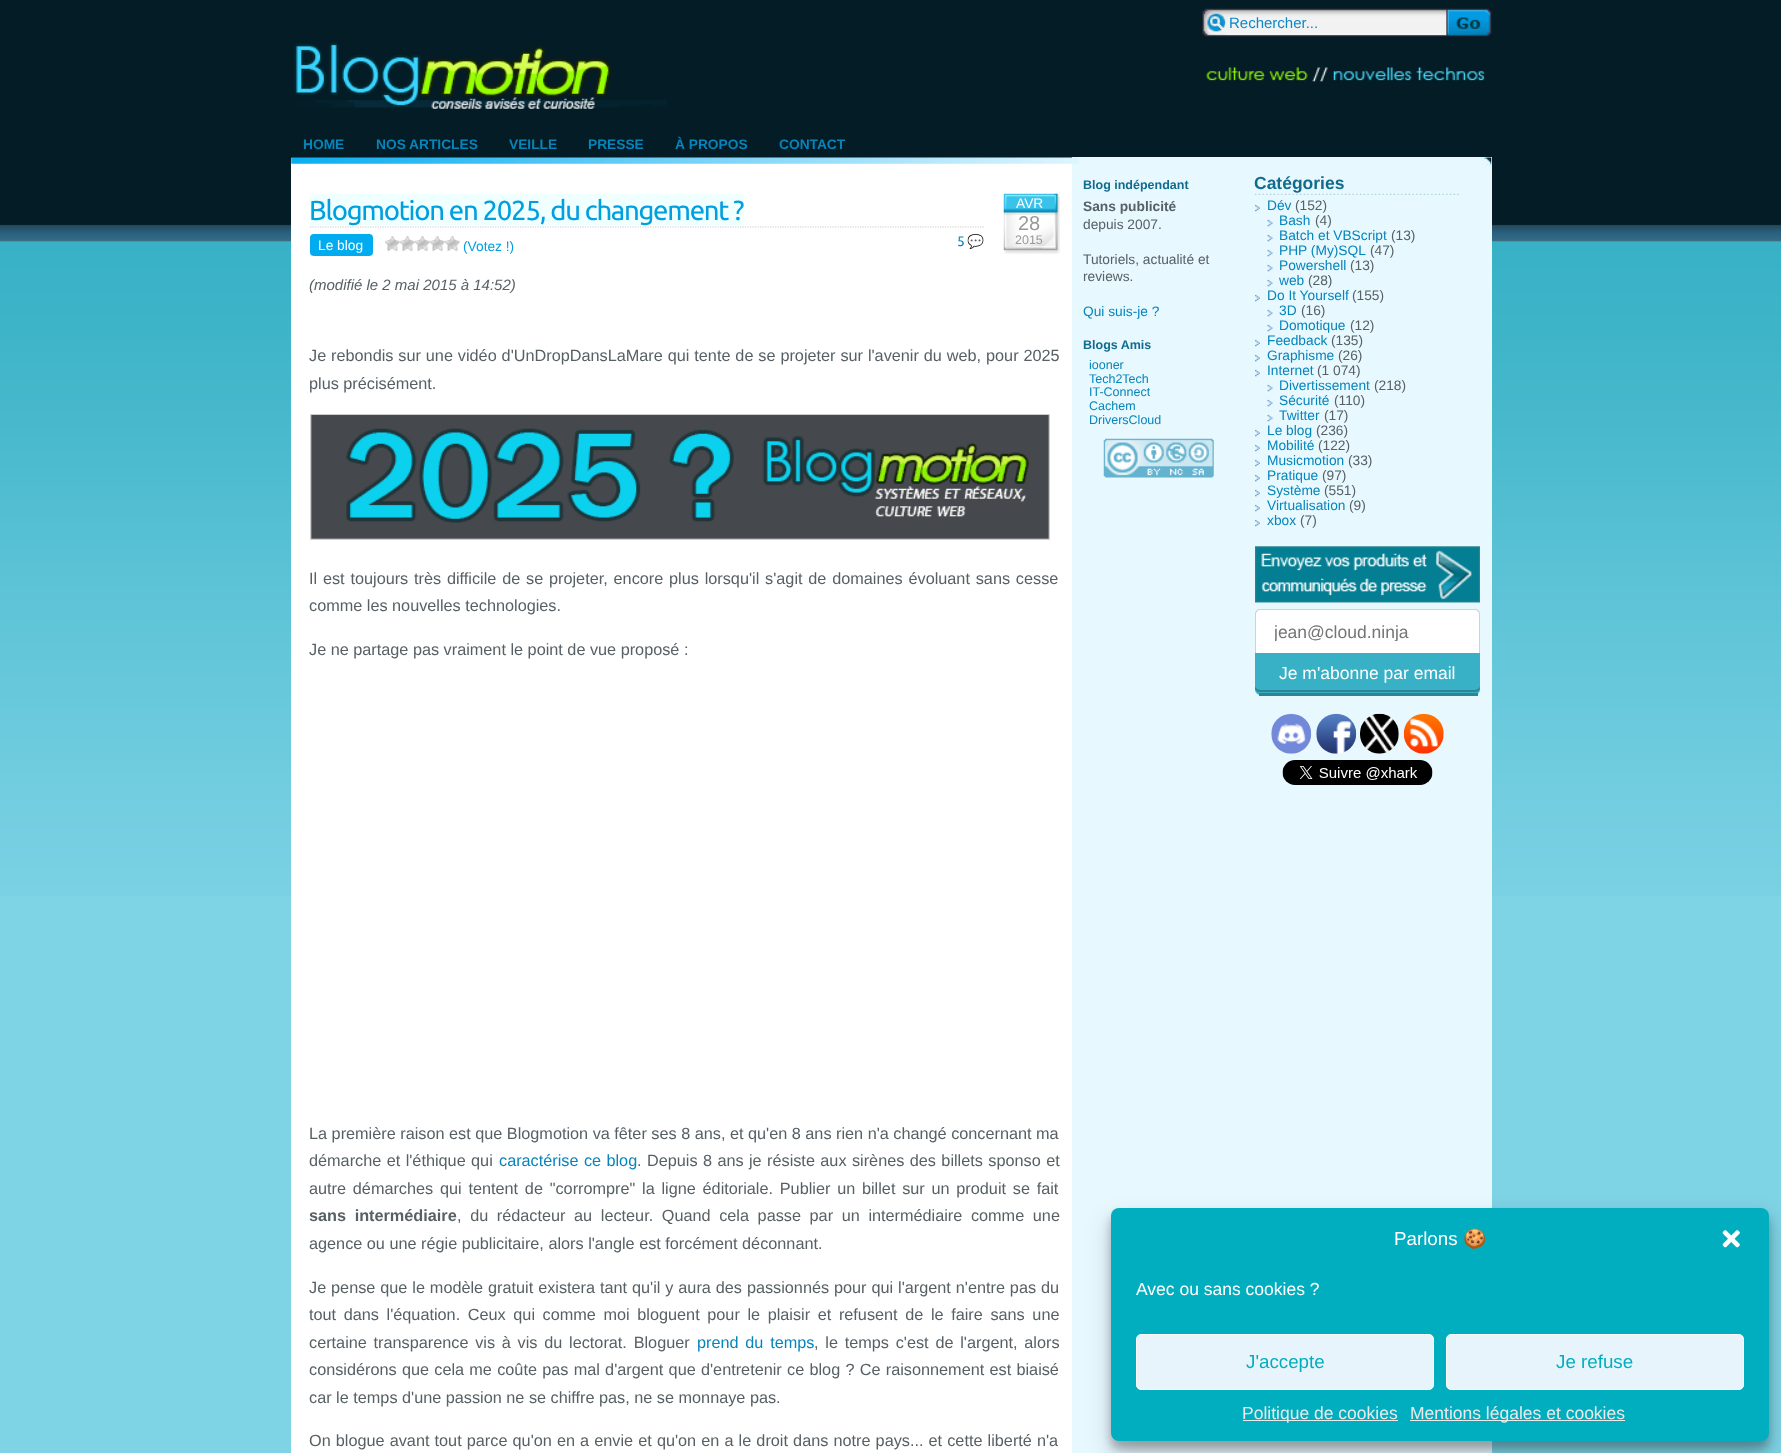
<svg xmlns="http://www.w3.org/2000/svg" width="1781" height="1453">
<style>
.a{font:15px Liberation Sans;fill:#0b88c6}
.b{font:bold 13.75px Liberation Sans;fill:#0685bb}
.c{font:27.5px Ubuntu;letter-spacing:-1.25px;fill:#009fdf}
.d{font:13.75px Liberation Sans;fill:#fff}
.e{font:13.75px Liberation Sans;fill:#009fdf}
.f{font:13.75px Ubuntu;fill:#0685bb}
.g{font:13.75px Noto Color Emoji;fill:#009fdf}
.h{font:20px Liberation Sans;fill:#999}
.i{font:12.5px Liberation Sans;fill:#999}
.j{font:italic 15px Liberation Sans;fill:#576064}
.k{font:16.25px Liberation Sans;fill:#576064}
.l{font:16.25px Liberation Sans;fill:#0685bb}
.m{font:bold 16.25px Liberation Sans;fill:#576064}
.n{font:bold 12.5px Liberation Sans;fill:#116b8f}
.o{font:bold 13.75px Liberation Sans;fill:#576064}
.p{font:13.75px Liberation Sans;fill:#576064}
.q{font:13.75px Liberation Sans;fill:#0685bb}
.r{font:12.5px Liberation Sans;fill:#0685bb}
.s{font:bold 17.5px Liberation Sans;fill:#116b8f}
.t{font:17.5px Liberation Sans;fill:#757575}
.u{font:17.5px Liberation Sans;fill:#fff}
.v{font:18.75px Liberation Sans;fill:#fff}
.w{font:18.75px Noto Color Emoji;fill:#fff}
.x{font:18.75px Liberation Sans;fill:#00aebf}
.y{font:17.5px Liberation Sans;fill:#eaeaea}
</style>
<defs>
<clipPath id="clip1"><path d="M1275 621h185v20H1275z"/></clipPath>
</defs>
<rect width="100%" height="100%" fill="#7ed3e5"/>
<image href="1.png" x="0" y="0" width="1781" height="896"/>
<image href="2.png" x="1202" y="8" width="246" height="29"/>
<image href="3.png" x="1447" y="8" width="45" height="29"/>
<image href="4.png" x="294" y="42" width="373" height="67"/>
<image href="5.png" x="1206" y="67" width="279" height="15"/>
<path fill="#fff" d="M291 158h781v1295H291z"/>
<path fill="#e7f8ff" d="M1072 157h420v1296H1072z"/>
<image href="6.png" x="1482" y="157" width="10" height="10"/>
<image href="7.png" x="291" y="157" width="788" height="7"/>
<path fill="none" stroke="#ccc" stroke-width="1.2" stroke-dasharray="1.25 1.25" d="M310 227h675"/>
<path fill="#f0ffff" d="M310 194h434v31H310z"/>
<rect fill="#00abef" x="310" y="234" width="63" height="22" rx="4"/>
<image href="8.png" x="385" y="236" width="15" height="16"/>
<image href="8.png" x="400" y="236" width="15" height="16"/>
<image href="9.png" x="415" y="236" width="15" height="16"/>
<image href="9.png" x="430" y="236" width="15" height="16"/>
<image href="9.png" x="445" y="236" width="15" height="16"/>
<image href="10.png" x="1003" y="193" width="57" height="61"/>
<path fill="none" stroke="#ccc" d="M310.5 414.5h739v125H310.5z"/>
<image href="11.png" x="311" y="415" width="738" height="124"/>
<image href="12.png" x="1103" y="438" width="111" height="40"/>
<image href="13.png" x="1255" y="193" width="207" height="2"/>
<image href="14.png" x="1255" y="204" width="5" height="8"/>
<image href="15.png" x="1267" y="219" width="6" height="8"/>
<image href="15.png" x="1267" y="234" width="6" height="8"/>
<image href="15.png" x="1267" y="249" width="6" height="8"/>
<image href="15.png" x="1267" y="264" width="6" height="8"/>
<image href="15.png" x="1267" y="279" width="6" height="8"/>
<image href="16.png" x="1255" y="294" width="5" height="8"/>
<image href="15.png" x="1267" y="309" width="6" height="8"/>
<image href="15.png" x="1267" y="324" width="6" height="8"/>
<image href="14.png" x="1255" y="339" width="5" height="8"/>
<image href="14.png" x="1255" y="354" width="5" height="8"/>
<image href="14.png" x="1255" y="369" width="5" height="8"/>
<image href="15.png" x="1267" y="384" width="6" height="8"/>
<image href="15.png" x="1267" y="399" width="6" height="8"/>
<image href="15.png" x="1267" y="414" width="6" height="8"/>
<image href="14.png" x="1255" y="429" width="5" height="8"/>
<image href="14.png" x="1255" y="444" width="5" height="8"/>
<image href="14.png" x="1255" y="459" width="5" height="8"/>
<image href="14.png" x="1255" y="474" width="5" height="8"/>
<image href="14.png" x="1255" y="489" width="5" height="8"/>
<image href="14.png" x="1255" y="504" width="5" height="8"/>
<image href="14.png" x="1255" y="519" width="5" height="8"/>
<image href="17.png" x="1255" y="546" width="225" height="57"/>
<rect fill="#fff" x="1255" y="609" width="225" height="50" rx="5"/>
<path fill="#d1d1d1" fill-rule="evenodd" d="M1260 609h215c3 0 5 2 5 5v40c0 3-2 5-5 5h-215c-3 0-5-2-5-5v-40c0-3 2-5 5-5zm0 1h215c2 0 4 2 4 4v40c0 3-2 5-4 5h-215c-2 0-4-2-4-5v-40c0-2 2-4 4-4z"/>
<path fill="#38b1c6" d="M1255 653h225v36c0 3.5-2.5 6-6 6h-213c-3.5 0-6-2.5-6-6z"/>
<path fill="#2b8595" d="M1255 686c0 3 0 5 4 6h217c4-1 4-3 4-6c0 2-3 4-6 4h-213c-3 0-6-2-6-4z"/>
<path fill="#2b8595" d="M1259 693h219v3H1259z"/>
<image href="18.png" x="1271" y="713" width="41" height="41"/>
<image href="19.png" x="1316" y="713" width="41" height="41"/>
<image href="20.png" x="1360" y="713" width="39" height="41"/>
<image href="21.png" x="1403" y="713" width="41" height="41"/>
<image href="22.png" x="1282" y="760" width="151" height="25"/>
<rect fill="#0000003b" filter="blur(4px)" x="1111" y="1215" width="658" height="234" rx="8"/>
<rect fill="#00000030" filter="blur(12.5px)" x="1111" y="1220" width="658" height="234" rx="8"/>
<rect fill="#00aebf" x="1111" y="1208" width="658" height="233" rx="8"/>
<image href="23.png" x="1722" y="1230" width="18" height="18"/>
<rect fill="#e8f4fc" stroke="#fff" x="1136.5" y="1334.5" width="297" height="55" rx="4.5"/>
<rect fill="#e8f4fc" stroke="#fff" x="1446.5" y="1334.5" width="297" height="55" rx="4.5"/>
<path fill="#eaeaea" d="M1243 1420h155v1H1243z"/>
<path fill="#eaeaea" d="M1410 1420h215v1H1410z"/>
<text class="a" x="1229" y="28">Rechercher...</text>
<text class="b" x="303" y="149">HOME</text>
<text class="b" x="376" y="149">NOS ARTICLES</text>
<text class="b" x="509" y="149">VEILLE</text>
<text class="b" x="588" y="149">PRESSE</text>
<text class="b" x="675" y="149">À PROPOS</text>
<text class="b" x="779" y="149">CONTACT</text>
<text class="c" x="309" y="220">Blogmotion en 2025, du changement ?</text>
<text class="d" x="318" y="250">Le blog</text>
<text class="e" x="463" y="251">(Votez !)</text>
<text class="f" x="957" y="246">5</text>
<text class="g" x="967" y="246">💬</text>
<text class="d" x="1016" y="208">AVR</text>
<text class="h" x="1018" y="230">28</text>
<text class="i" x="1015" y="244">2015</text>
<text class="j" x="309" y="290">(modifié le 2 mai 2015 à 14:52)</text>
<text class="k" x="309" y="361" word-spacing="0.4">Je rebondis sur une vidéo d'UnDropDansLaMare qui tente de se projeter sur l'avenir du web, pour 2025</text>
<text class="k" x="309" y="389">plus précisément.</text>
<text class="k" x="309" y="584" word-spacing="1.3">Il est toujours très difficile de se projeter, encore plus lorsqu'il s'agit de domaines évoluant sans cesse</text>
<text class="k" x="309" y="611">comme les nouvelles technologies.</text>
<text class="k" x="309" y="655">Je ne partage pas vraiment le point de vue proposé :</text>
<text class="k" x="309" y="1139">La première raison est que Blogmotion va fêter ses 8 ans, et qu'en 8 ans rien n'a changé concernant ma</text>
<text class="k" x="309" y="1166" word-spacing="0.9">démarche et l'éthique qui</text>
<text class="l" x="499" y="1166" word-spacing="0.9">caractérise ce blog</text>
<text class="k" x="637" y="1166" word-spacing="0.9">. Depuis 8 ans je résiste aux sirènes des billets sponso et</text>
<text class="k" x="309" y="1194" word-spacing="2.25">autre démarches qui tentent de "corrompre" la ligne éditoriale. Publier un billet sur un produit se fait</text>
<text class="m" x="309" y="1221" word-spacing="4.1">sans intermédiaire</text>
<text class="k" x="457" y="1221" word-spacing="4.1">, du rédacteur au lecteur. Quand cela passe par un intermédiaire comme une</text>
<text class="k" x="309" y="1249">agence ou une régie publicitaire, alors l'angle est forcément déconnant.</text>
<text class="k" x="309" y="1293" word-spacing="0.4">Je pense que le modèle gratuit existera tant qu'il y aura des passionnés pour qui l'argent n'entre pas du</text>
<text class="k" x="309" y="1320" word-spacing="3.1">tout dans l'équation. Ceux qui comme moi bloguent pour le plaisir et refusent de le faire sans une</text>
<text class="k" x="309" y="1348" word-spacing="2.25">certaine transparence vis à vis du lectorat. Bloguer</text>
<text class="l" x="697" y="1348" word-spacing="2.25">prend du temps</text>
<text class="k" x="814" y="1348" word-spacing="2.25">, le temps c'est de l'argent, alors</text>
<text class="k" x="309" y="1375" word-spacing="0.75">considérons que cela me coûte pas mal d'argent que d'entretenir ce blog ? Ce raisonnement est biaisé</text>
<text class="k" x="309" y="1403">car le temps d'une passion ne se chiffre pas, ne se monnaye pas.</text>
<text class="k" x="309" y="1446" word-spacing="0.6">On blogue avant tout parce qu'on en a envie et qu'on en a le droit dans notre pays... et cette liberté n'a</text>
<text class="n" x="1083" y="189">Blog indépendant</text>
<text class="o" x="1083" y="211">Sans publicité</text>
<text class="p" x="1083" y="229">depuis 2007.</text>
<text class="p" x="1083" y="264">Tutoriels, actualité et</text>
<text class="p" x="1083" y="281">reviews.</text>
<text class="q" x="1083" y="316">Qui suis-je ?</text>
<text class="n" x="1083" y="349">Blogs Amis</text>
<text class="r" x="1089" y="369">iooner</text>
<text class="r" x="1089" y="383">Tech2Tech</text>
<text class="r" x="1089" y="396">IT-Connect</text>
<text class="r" x="1089" y="410">Cachem</text>
<text class="r" x="1089" y="424">DriversCloud</text>
<text class="s" x="1254" y="189">Catégories</text>
<text class="q" x="1267" y="210">Dév</text>
<text class="p" x="1295" y="210">(152)</text>
<text class="q" x="1279" y="225">Bash</text>
<text class="p" x="1315" y="225">(4)</text>
<text class="q" x="1279" y="240">Batch et VBScript</text>
<text class="p" x="1391" y="240">(13)</text>
<text class="q" x="1279" y="255">PHP (My)SQL</text>
<text class="p" x="1370" y="255">(47)</text>
<text class="q" x="1279" y="270">Powershell</text>
<text class="p" x="1350" y="270">(13)</text>
<text class="q" x="1279" y="285">web</text>
<text class="p" x="1308" y="285">(28)</text>
<text class="q" x="1267" y="300">Do It Yourself</text>
<text class="p" x="1352" y="300">(155)</text>
<text class="q" x="1279" y="315">3D</text>
<text class="p" x="1301" y="315">(16)</text>
<text class="q" x="1279" y="330">Domotique</text>
<text class="p" x="1350" y="330">(12)</text>
<text class="q" x="1267" y="345">Feedback</text>
<text class="p" x="1331" y="345">(135)</text>
<text class="q" x="1267" y="360">Graphisme</text>
<text class="p" x="1338" y="360">(26)</text>
<text class="q" x="1267" y="375">Internet</text>
<text class="p" x="1317" y="375">(1 074)</text>
<text class="q" x="1279" y="390">Divertissement</text>
<text class="p" x="1374" y="390">(218)</text>
<text class="q" x="1279" y="405">Sécurité</text>
<text class="p" x="1334" y="405">(110)</text>
<text class="q" x="1279" y="420">Twitter</text>
<text class="p" x="1324" y="420">(17)</text>
<text class="q" x="1267" y="435">Le blog</text>
<text class="p" x="1316" y="435">(236)</text>
<text class="q" x="1267" y="450">Mobilité</text>
<text class="p" x="1318" y="450">(122)</text>
<text class="q" x="1267" y="465">Musicmotion</text>
<text class="p" x="1348" y="465">(33)</text>
<text class="q" x="1267" y="480">Pratique</text>
<text class="p" x="1322" y="480">(97)</text>
<text class="q" x="1267" y="495">Système</text>
<text class="p" x="1324" y="495">(551)</text>
<text class="q" x="1267" y="510">Virtualisation</text>
<text class="p" x="1349" y="510">(9)</text>
<text class="q" x="1267" y="525">xbox</text>
<text class="p" x="1300" y="525">(7)</text>
<g clip-path="url(#clip1)">
<text class="t" x="1274" y="638">jean@cloud.ninja</text>
</g>
<text class="u" x="1279" y="679">Je m'abonne par email</text>
<text class="v" x="1394" y="1245">Parlons</text>
<text class="w" x="1463" y="1245">🍪</text>
<text class="u" x="1136" y="1295">Avec ou sans cookies ?</text>
<text class="x" x="1246" y="1368">J'accepte</text>
<text class="x" x="1556" y="1368">Je refuse</text>
<text class="y" x="1242" y="1419">Politique de cookies</text>
<text class="y" x="1410" y="1419">Mentions légales et cookies</text>
</svg>
